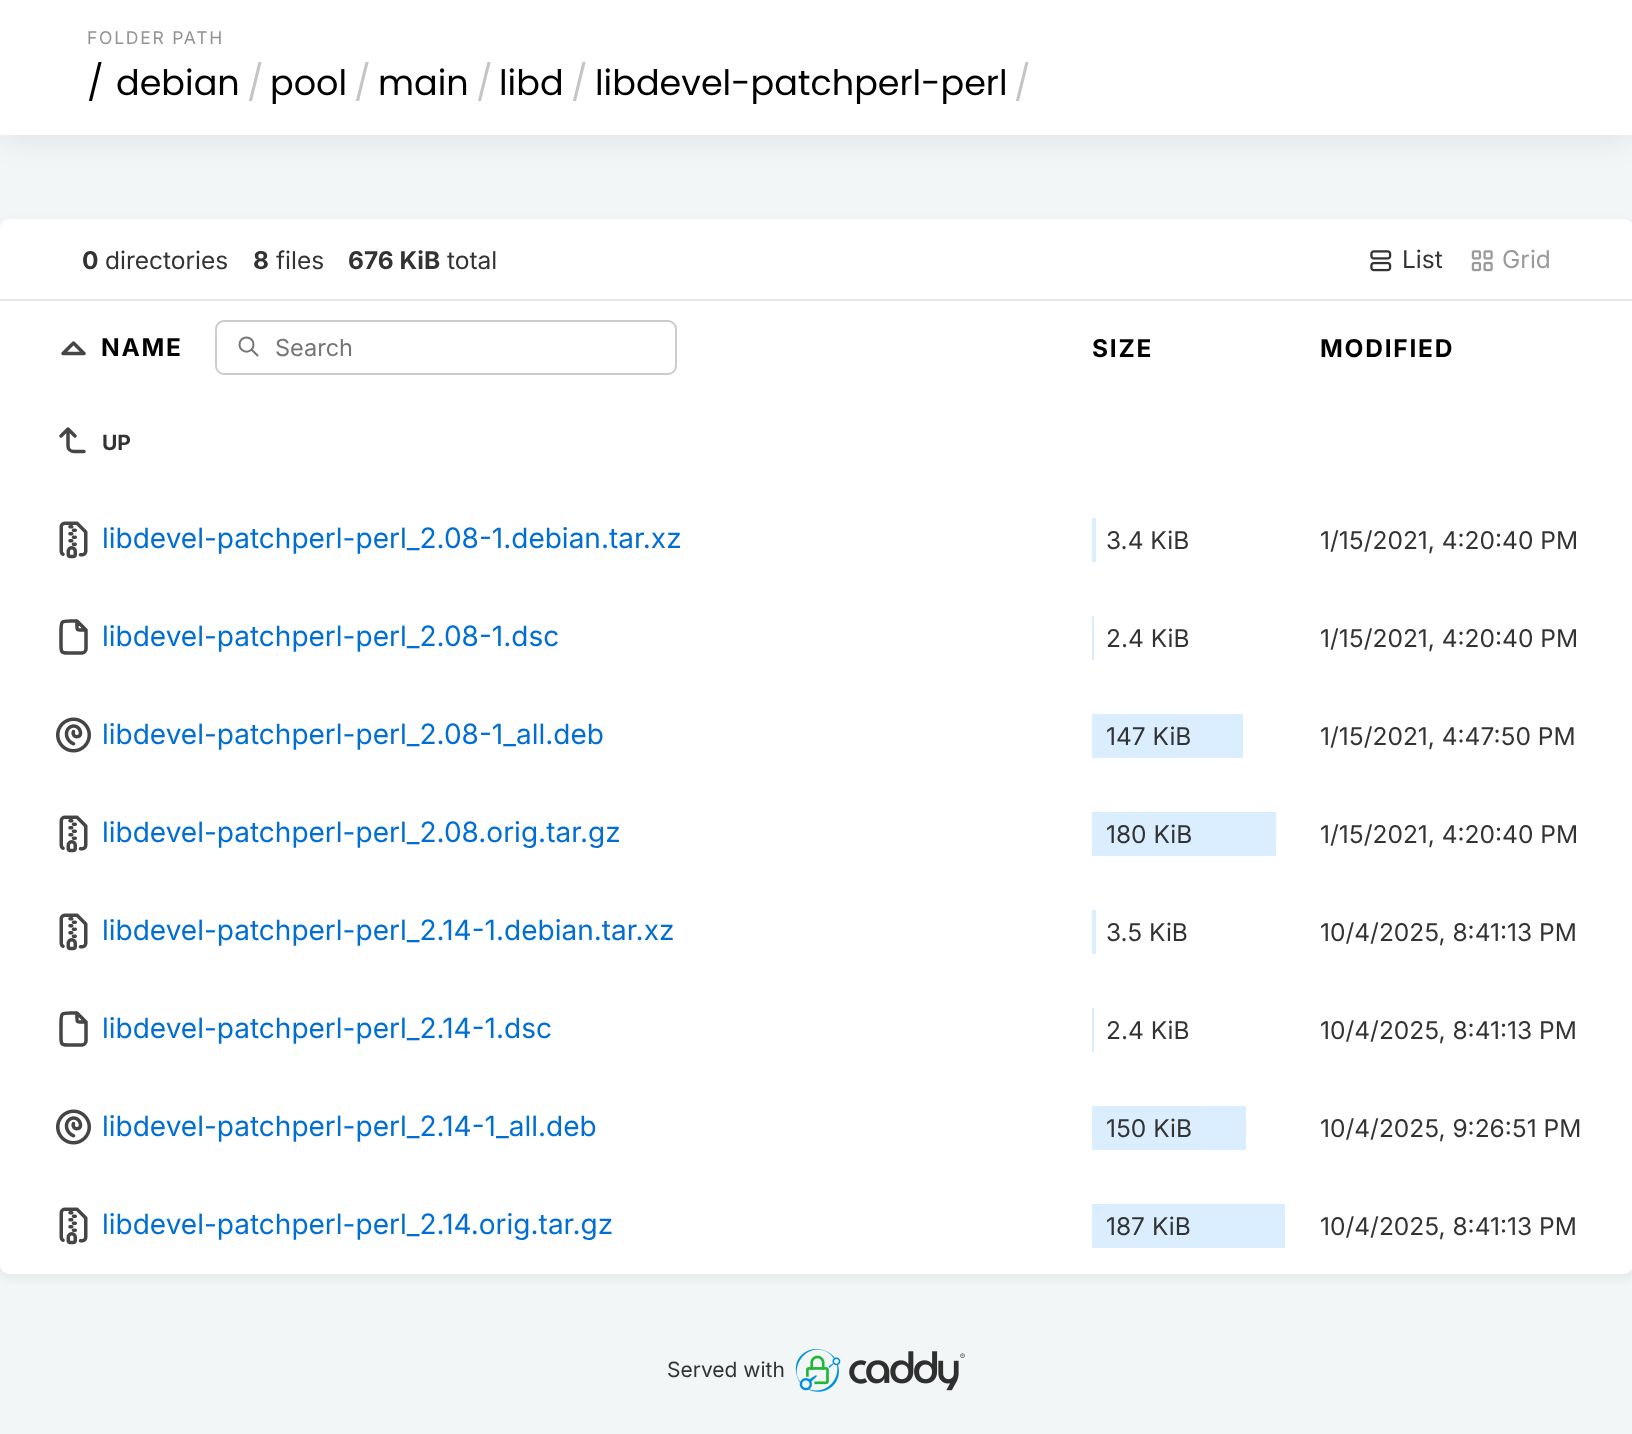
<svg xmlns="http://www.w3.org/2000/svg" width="1632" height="1434">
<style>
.a{font:17.5px Inter;letter-spacing:1.75px;fill:#939393}
.b{font:35px Poppins;fill:#000}
.c{font:35px Poppins;fill:#c5c5c5}
.d{font:bold 24.5px Inter;fill:#333}
.e{font:24.5px Inter;fill:#333}
.f{font:24.5px Inter;fill:#9a9a9a}
.g{font:bold 24.5px Inter;letter-spacing:1.75px;fill:#000}
.h{font:23.5px Inter;fill:#757575}
.i{font:bold 21px Inter;fill:#333}
.j{font:28px Inter;fill:#006ed3}
.k{font:21px Inter;fill:#333}
</style>
<rect width="100%" height="100%" fill="#f3f6f7"/>
<path fill="#0000001a" filter="blur(17.5px)" d="M0 0h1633v135H0z"/>
<path fill="#fff" d="M0 0h1632v135H0z"/>
<rect fill="#0000000d" filter="blur(4.5px)" x="-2" y="221" width="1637" height="1058" rx="11"/>
<rect fill="#fff" y="219" width="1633" height="1055" rx="9"/>
<path fill="#e5e9ea" d="M0 299h1632v2H0z"/>
<image href="1.png" x="1370" y="250" width="22" height="22"/>
<image href="2.png" x="1471" y="250" width="22" height="22"/>
<path fill="none" stroke="#454545" stroke-width="3.5" stroke-linecap="round" stroke-linejoin="round" d="M84 353.5l-10.5-10.5l-10.5 10.5h21"/>
<path fill="none" stroke="#777" stroke-width="2" stroke-linecap="round" stroke-linejoin="round" d="M239.5 344.5c0 9.5 14 9.5 14 0c0-9.5-14-9.5-14 0m18 11l-6-6"/>
<rect fill="none" stroke="#ccc" stroke-width="2" x="216" y="321" width="460" height="53" rx="8"/>
<path fill="none" stroke="#454545" stroke-width="3.5" stroke-linecap="round" stroke-linejoin="round" d="M84 451.5h-10.5c-3 0-5.5-2.5-5.5-5.5v-17l-7 7m14 0l-7-7"/>
<image href="3.png" x="59" y="521" width="29" height="38"/>
<path fill="#dbeeff" d="M1092 518h4v44H1092z"/>
<path fill="none" stroke="#454545" stroke-width="3.5" stroke-linecap="round" stroke-linejoin="round" d="M77 621c0 10.5-1.5 9 9 9m-4 23h-14.5c-6.5 0-6.5-1.5-6.5-8v-8c0-18.5-1.5-16 16-16l9 9v19c0 2-2 4-4 4z"/>
<path fill="#dbeeff" d="M1092 616h2v44H1092z"/>
<image href="4.png" x="56" y="717" width="35" height="36"/>
<path fill="#dbeeff" d="M1092 714h151v44H1092z"/>
<image href="3.png" x="59" y="815" width="29" height="38"/>
<path fill="#dbeeff" d="M1092 812h184v44H1092z"/>
<image href="3.png" x="59" y="913" width="29" height="38"/>
<path fill="#dbeeff" d="M1092 910h4v44H1092z"/>
<path fill="none" stroke="#454545" stroke-width="3.5" stroke-linecap="round" stroke-linejoin="round" d="M77 1013c0 10.5-1.5 9 9 9m-4 23h-14.5c-6.5 0-6.5-1.5-6.5-8v-8c0-18.5-1.5-16 16-16l9 9v19c0 2-2 4-4 4z"/>
<path fill="#dbeeff" d="M1092 1008h2v44H1092z"/>
<image href="4.png" x="56" y="1109" width="35" height="36"/>
<path fill="#dbeeff" d="M1092 1106h154v44H1092z"/>
<image href="3.png" x="59" y="1207" width="29" height="38"/>
<path fill="#dbeeff" d="M1092 1204h193v44H1092z"/>
<image href="5.png" x="795" y="1348" width="170" height="44"/>
<text class="a" x="87" y="44">FOLDER PATH</text>
<text class="b" x="87" y="95">/</text>
<text class="b" x="116" y="95">debian</text>
<text class="c" x="247" y="95">/</text>
<text class="b" x="270" y="95">pool</text>
<text class="c" x="354" y="95">/</text>
<text class="b" x="378" y="95">main</text>
<text class="c" x="476" y="95">/</text>
<text class="b" x="499" y="95">libd</text>
<text class="c" x="571" y="95">/</text>
<text class="b" x="595" y="95">libdevel-patchperl-perl</text>
<text class="c" x="1014" y="95">/</text>
<text class="d" x="82" y="269">0</text>
<text class="e" x="105" y="269">directories</text>
<text class="d" x="253" y="269">8</text>
<text class="e" x="276" y="269">files</text>
<text class="d" x="348" y="269">676 KiB</text>
<text class="e" x="447" y="269">total</text>
<text class="e" x="1402" y="268">List</text>
<text class="f" x="1502" y="268">Grid</text>
<text class="g" x="101" y="356">NAME</text>
<text class="h" x="275" y="356">Search</text>
<text class="g" x="1092" y="357">SIZE</text>
<text class="g" x="1320" y="357">MODIFIED</text>
<text class="i" x="102" y="450">UP</text>
<text class="j" x="102" y="548">libdevel-patchperl-perl_2.08-1.debian.tar.xz</text>
<text class="e" x="1106" y="549">3.4 KiB</text>
<text class="e" x="1320" y="549">1/15/2021, 4:20:40 PM</text>
<text class="j" x="102" y="646">libdevel-patchperl-perl_2.08-1.dsc</text>
<text class="e" x="1106" y="647">2.4 KiB</text>
<text class="e" x="1320" y="647">1/15/2021, 4:20:40 PM</text>
<text class="j" x="102" y="744">libdevel-patchperl-perl_2.08-1_all.deb</text>
<text class="e" x="1106" y="745">147 KiB</text>
<text class="e" x="1320" y="745">1/15/2021, 4:47:50 PM</text>
<text class="j" x="102" y="842">libdevel-patchperl-perl_2.08.orig.tar.gz</text>
<text class="e" x="1106" y="843">180 KiB</text>
<text class="e" x="1320" y="843">1/15/2021, 4:20:40 PM</text>
<text class="j" x="102" y="940">libdevel-patchperl-perl_2.14-1.debian.tar.xz</text>
<text class="e" x="1106" y="941">3.5 KiB</text>
<text class="e" x="1320" y="941">10/4/2025, 8:41:13 PM</text>
<text class="j" x="102" y="1038">libdevel-patchperl-perl_2.14-1.dsc</text>
<text class="e" x="1106" y="1039">2.4 KiB</text>
<text class="e" x="1320" y="1039">10/4/2025, 8:41:13 PM</text>
<text class="j" x="102" y="1136">libdevel-patchperl-perl_2.14-1_all.deb</text>
<text class="e" x="1106" y="1137">150 KiB</text>
<text class="e" x="1320" y="1137">10/4/2025, 9:26:51 PM</text>
<text class="j" x="102" y="1234">libdevel-patchperl-perl_2.14.orig.tar.gz</text>
<text class="e" x="1106" y="1235">187 KiB</text>
<text class="e" x="1320" y="1235">10/4/2025, 8:41:13 PM</text>
<text class="k" x="667" y="1377">Served with</text>
</svg>
